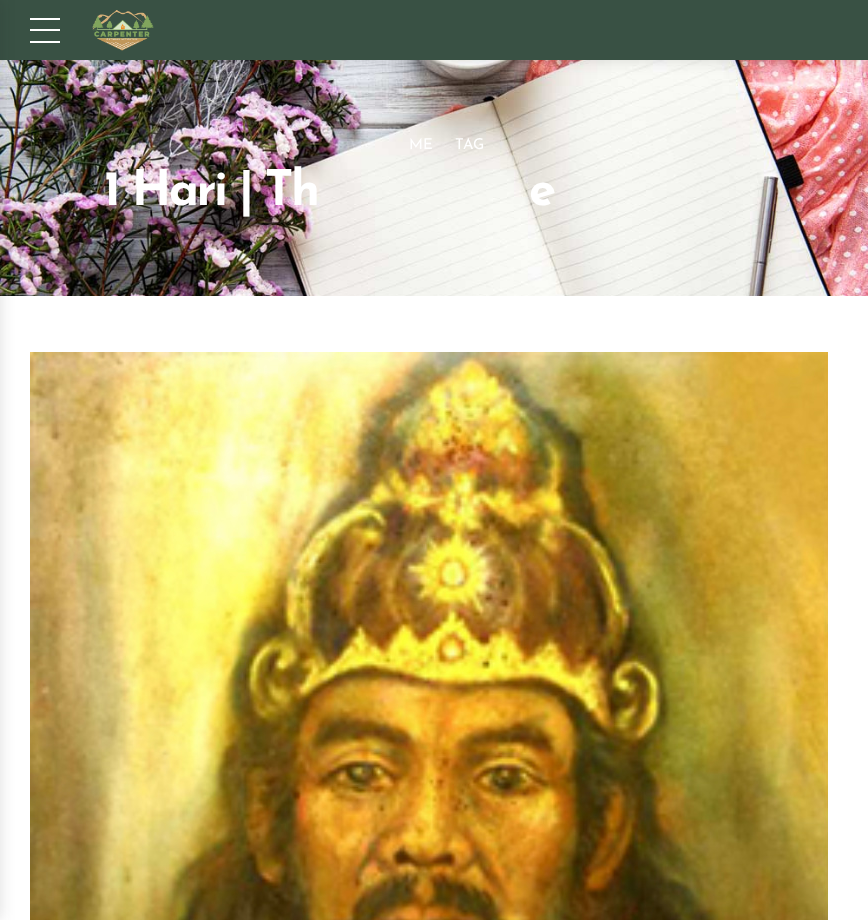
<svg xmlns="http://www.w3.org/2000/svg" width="868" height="920">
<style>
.a{font:15px Josefin Sans;fill:#fff}
.b{font:bold 49px Josefin Sans;letter-spacing:-2.5px;fill:#fff}
</style>
<rect width="100%" height="100%" fill="#fff"/>
<image href="2.png" x="0" y="60" width="868" height="236"/>
<path fill="#18181826" filter="blur(7.5px)" d="M0 0h868v60H0z"/>
<path fill="#395144" d="M0 0h868v60H0z"/>
<path fill="#fff" d="M30 18h30v2H30z"/>
<path fill="#fff" d="M30 29h30v2H30z"/>
<path fill="#fff" d="M30 41h30v2H30z"/>
<image href="1.png" x="92" y="10" width="62" height="41"/>
<path fill="#18181826" filter="blur(7.5px)" d="M-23 0h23v920H-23z"/>
<circle fill="#ffffff33" cx="443.5" cy="144.5" r="1.5"/>
<image href="3.png" x="30" y="352" width="798" height="568"/>
<text class="a" x="409" y="149">ME</text>
<text class="a" x="455" y="149">TAG</text>
<text class="b" x="104" y="205">1 Hari | Th</text>
<text class="b" x="529" y="205">e</text>
</svg>
